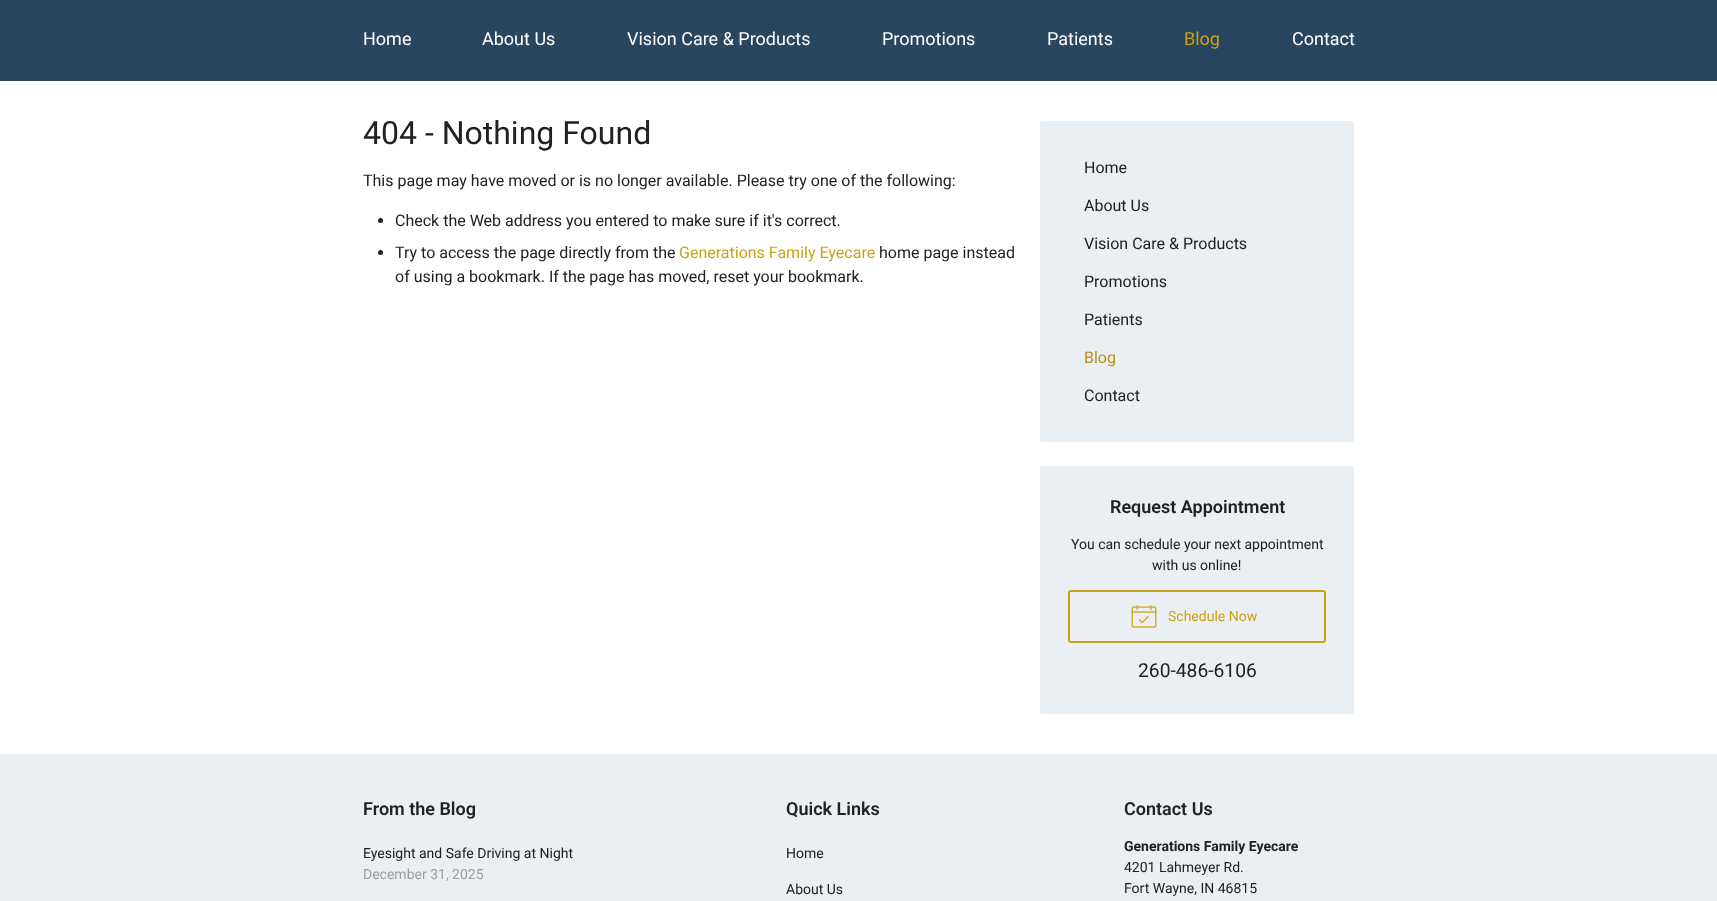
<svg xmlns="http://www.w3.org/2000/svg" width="1717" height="901">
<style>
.a{font:18px Roboto;fill:#fff}
.b{font:18px Roboto;fill:#cca215}
.c{font:32px Roboto;fill:#212121}
.d{font:16px Roboto;fill:#212121}
.e{font:16px Roboto;fill:#cca215}
.f{font:16px Roboto;fill:#b59013}
.g{font:600 18px Roboto;fill:#212121}
.h{font:14px Roboto;fill:#212121}
.i{font:14px Roboto;fill:#cca215}
.j{font:19.25px Roboto;fill:#212121}
.k{font:14px Roboto;fill:#9e9e9e}
.l{font:bold 14px Roboto;fill:#212121}
</style>
<rect width="100%" height="100%" fill="#e9eff2"/>
<path fill="#294661" d="M0 0h1717v81H0z"/>
<path fill="#fff" d="M0 81h1717v673H0z"/>
<circle fill="#212121" cx="380.5" cy="220.5" r="2.5"/>
<circle fill="#212121" cx="380.5" cy="252.5" r="2.5"/>
<rect fill="#e9eff2" x="1040" y="121" width="314" height="321" rx="3"/>
<rect fill="#e9eff2" x="1040" y="466" width="314" height="248" rx="3"/>
<rect fill="none" stroke="#cca215" stroke-width="2" x="1069" y="591" width="256" height="51" rx="2"/>
<image href="1.png" x="1131" y="605" width="26" height="23"/>
<text class="a" x="363" y="45">Home</text>
<text class="a" x="482" y="45">About Us</text>
<text class="a" x="627" y="45">Vision Care &amp; Products</text>
<text class="a" x="882" y="45">Promotions</text>
<text class="a" x="1047" y="45">Patients</text>
<text class="b" x="1184" y="45">Blog</text>
<text class="a" x="1292" y="45">Contact</text>
<text class="c" x="363" y="144">404 - Nothing Found</text>
<text class="d" x="363" y="186">This page may have moved or is no longer available. Please try one of the following:</text>
<text class="d" x="395" y="226">Check the Web address you entered to make sure if it's correct.</text>
<text class="d" x="395" y="258">Try to access the page directly from the</text>
<text class="e" x="679" y="258">Generations Family Eyecare</text>
<text class="d" x="879" y="258">home page instead</text>
<text class="d" x="395" y="282">of using a bookmark. If the page has moved, reset your bookmark.</text>
<text class="d" x="1084" y="173">Home</text>
<text class="d" x="1084" y="211">About Us</text>
<text class="d" x="1084" y="249">Vision Care &amp; Products</text>
<text class="d" x="1084" y="287">Promotions</text>
<text class="d" x="1084" y="325">Patients</text>
<text class="f" x="1084" y="363">Blog</text>
<text class="d" x="1084" y="401">Contact</text>
<text class="g" x="1110" y="513">Request Appointment</text>
<text class="h" x="1071" y="549">You can schedule your next appointment</text>
<text class="h" x="1152" y="570">with us online!</text>
<text class="i" x="1168" y="621">Schedule Now</text>
<text class="j" x="1138" y="677">260-486-6106</text>
<text class="g" x="363" y="815">From the Blog</text>
<text class="h" x="363" y="858">Eyesight and Safe Driving at Night</text>
<text class="k" x="363" y="879">December 31, 2025</text>
<text class="g" x="786" y="815">Quick Links</text>
<text class="h" x="786" y="858">Home</text>
<text class="h" x="786" y="894">About Us</text>
<text class="g" x="1124" y="815">Contact Us</text>
<text class="l" x="1124" y="851">Generations Family Eyecare</text>
<text class="h" x="1124" y="872">4201 Lahmeyer Rd.</text>
<text class="h" x="1124" y="893">Fort Wayne, IN 46815</text>
</svg>
